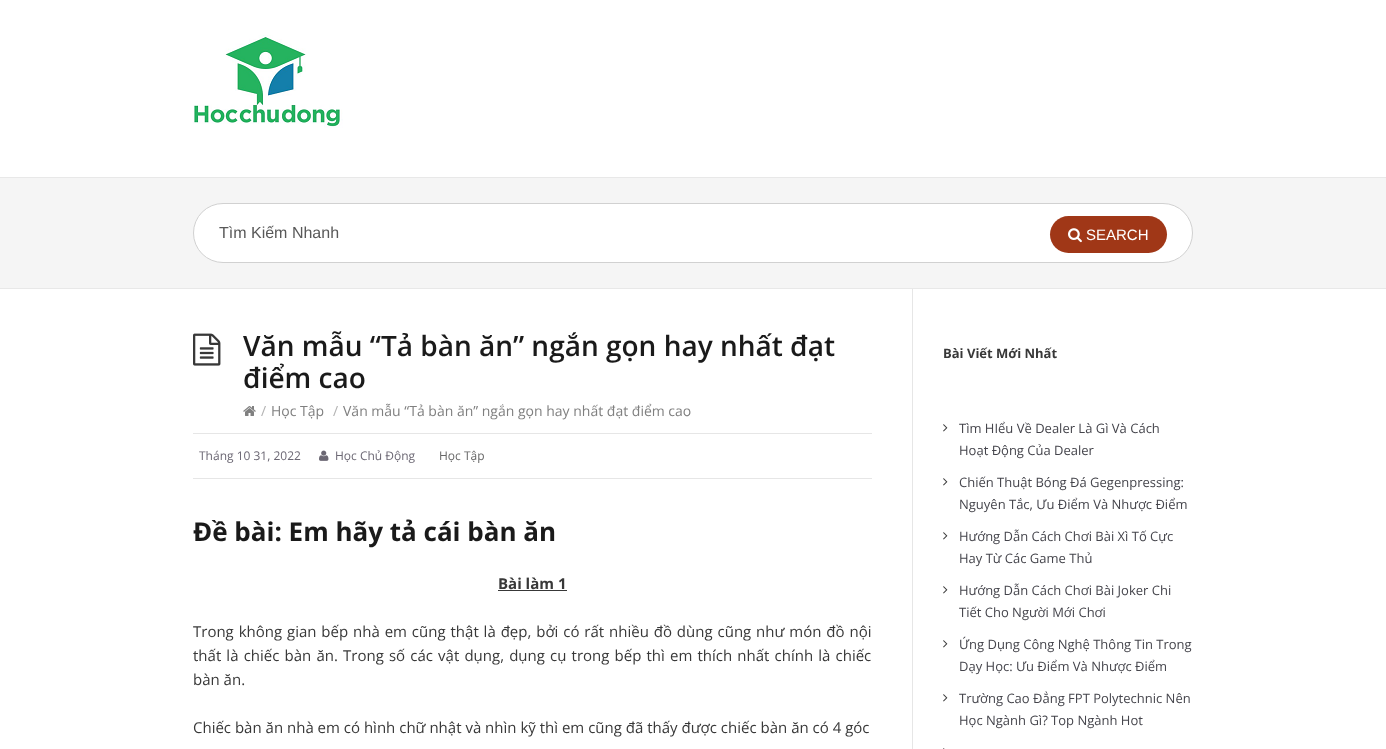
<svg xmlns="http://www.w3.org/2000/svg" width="1386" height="749">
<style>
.a{font:16px Liberation Sans;fill:#595959}
.b{font:15px Liberation Sans;fill:#fff}
.c{font:600 28px Open Sans;fill:#1a1a1a}
.d{font:14px Open Sans;fill:#b3b3b3}
.e{font:14px Open Sans;fill:#808080}
.f{font:12px Open Sans;fill:#6b6773}
.g{font:12px Open Sans;fill:#666}
.h{font:bold 26px Open Sans;fill:#1a1a1a}
.i{font:bold 15px Open Sans;fill:#383838}
.j{font:15px Open Sans;fill:#383838}
.k{font:bold 13px Open Sans;fill:#383838}
.l{font:13px Open Sans;fill:#45454c}
</style>
<rect width="100%" height="100%" fill="#fff"/>
<image href="1.png" x="193" y="35" width="150" height="93"/>
<path fill="#f5f5f5" d="M0 178h1386v110H0z"/>
<path fill="#e8e8e8" d="M0 177h1386v1H0z"/>
<path fill="#e8e8e8" d="M0 288h1386v1H0z"/>
<rect fill="#fff" stroke="#d1d1d1" x="193.5" y="203.5" width="999" height="59" rx="29.5"/>
<rect fill="#a03717" x="1050" y="216" width="117" height="37" rx="18.5"/>
<image href="2.png" x="1068" y="228" width="14" height="15"/>
<path fill="#e6e6e6" d="M912 289h1v460H912z"/>
<path fill="#e6e6e6" d="M193 433h679v1H193z"/>
<image href="3.png" x="193" y="333" width="28" height="33"/>
<image href="4.png" x="243" y="406" width="13" height="10"/>
<path fill="#e6e6e6" d="M193 478h679v1H193z"/>
<image href="5.png" x="319" y="450" width="10" height="11"/>
<path fill="#383838" d="M498 590h69v1H498z"/>
<image href="6.png" x="943" y="424" width="5" height="8"/>
<image href="6.png" x="943" y="478" width="5" height="8"/>
<image href="6.png" x="943" y="532" width="5" height="8"/>
<image href="6.png" x="943" y="586" width="5" height="8"/>
<image href="6.png" x="943" y="640" width="5" height="8"/>
<image href="6.png" x="943" y="694" width="5" height="8"/>
<image href="7.png" x="943" y="748" width="2" height="1"/>
<text class="a" x="219" y="238">Tìm Kiếm Nhanh</text>
<text class="b" x="1086" y="240">SEARCH</text>
<text class="c" x="243" y="356">Văn mẫu “Tả bàn ăn” ngắn gọn hay nhất đạt</text>
<text class="c" x="243" y="388">điểm cao</text>
<text class="d" x="261" y="416">/</text>
<text class="e" x="271" y="416">Học Tập</text>
<text class="d" x="333" y="416">/</text>
<text class="e" x="343" y="416">Văn mẫu “Tả bàn ăn” ngắn gọn hay nhất đạt điểm cao</text>
<text class="f" x="199" y="460">Tháng 10 31, 2022</text>
<text class="f" x="335" y="460">Học Chủ Động</text>
<text class="g" x="439" y="460">Học Tập</text>
<text class="h" x="193" y="541">Đề bài: Em hãy tả cái bàn ăn</text>
<text class="i" x="498" y="589">Bài làm 1</text>
<text class="j" x="193" y="637" word-spacing="1">Trong không gian bếp nhà em cũng thật là đẹp, bởi có rất nhiều đồ dùng cũng như món đồ nội</text>
<text class="j" x="193" y="661" word-spacing="1.25">thất là chiếc bàn ăn. Trong số các vật dụng, dụng cụ trong bếp thì em thích nhất chính là chiếc</text>
<text class="j" x="193" y="685">bàn ăn.</text>
<text class="j" x="193" y="733">Chiếc bàn ăn nhà em có hình chữ nhật và nhìn kỹ thì em cũng đã thấy được chiếc bàn ăn có 4 góc</text>
<text class="k" x="943" y="358">Bài Viết Mới Nhất</text>
<text class="l" x="959" y="433">Tìm HIểu Về Dealer Là Gì Và Cách</text>
<text class="l" x="959" y="455">Hoạt Động Của Dealer</text>
<text class="l" x="959" y="487">Chiến Thuật Bóng Đá Gegenpressing:</text>
<text class="l" x="959" y="509">Nguyên Tắc, Ưu Điểm Và Nhược Điểm</text>
<text class="l" x="959" y="541">Hướng Dẫn Cách Chơi Bài Xì Tố Cực</text>
<text class="l" x="959" y="563">Hay Từ Các Game Thủ</text>
<text class="l" x="959" y="595">Hướng Dẫn Cách Chơi Bài Joker Chi</text>
<text class="l" x="959" y="617">Tiết Cho Người Mới Chơi</text>
<text class="l" x="959" y="649">Ứng Dụng Công Nghệ Thông Tin Trong</text>
<text class="l" x="959" y="671">Dạy Học: Ưu Điểm Và Nhược Điểm</text>
<text class="l" x="959" y="703">Trường Cao Đẳng FPT Polytechnic Nên</text>
<text class="l" x="959" y="725">Học Ngành Gì? Top Ngành Hot</text>
</svg>
